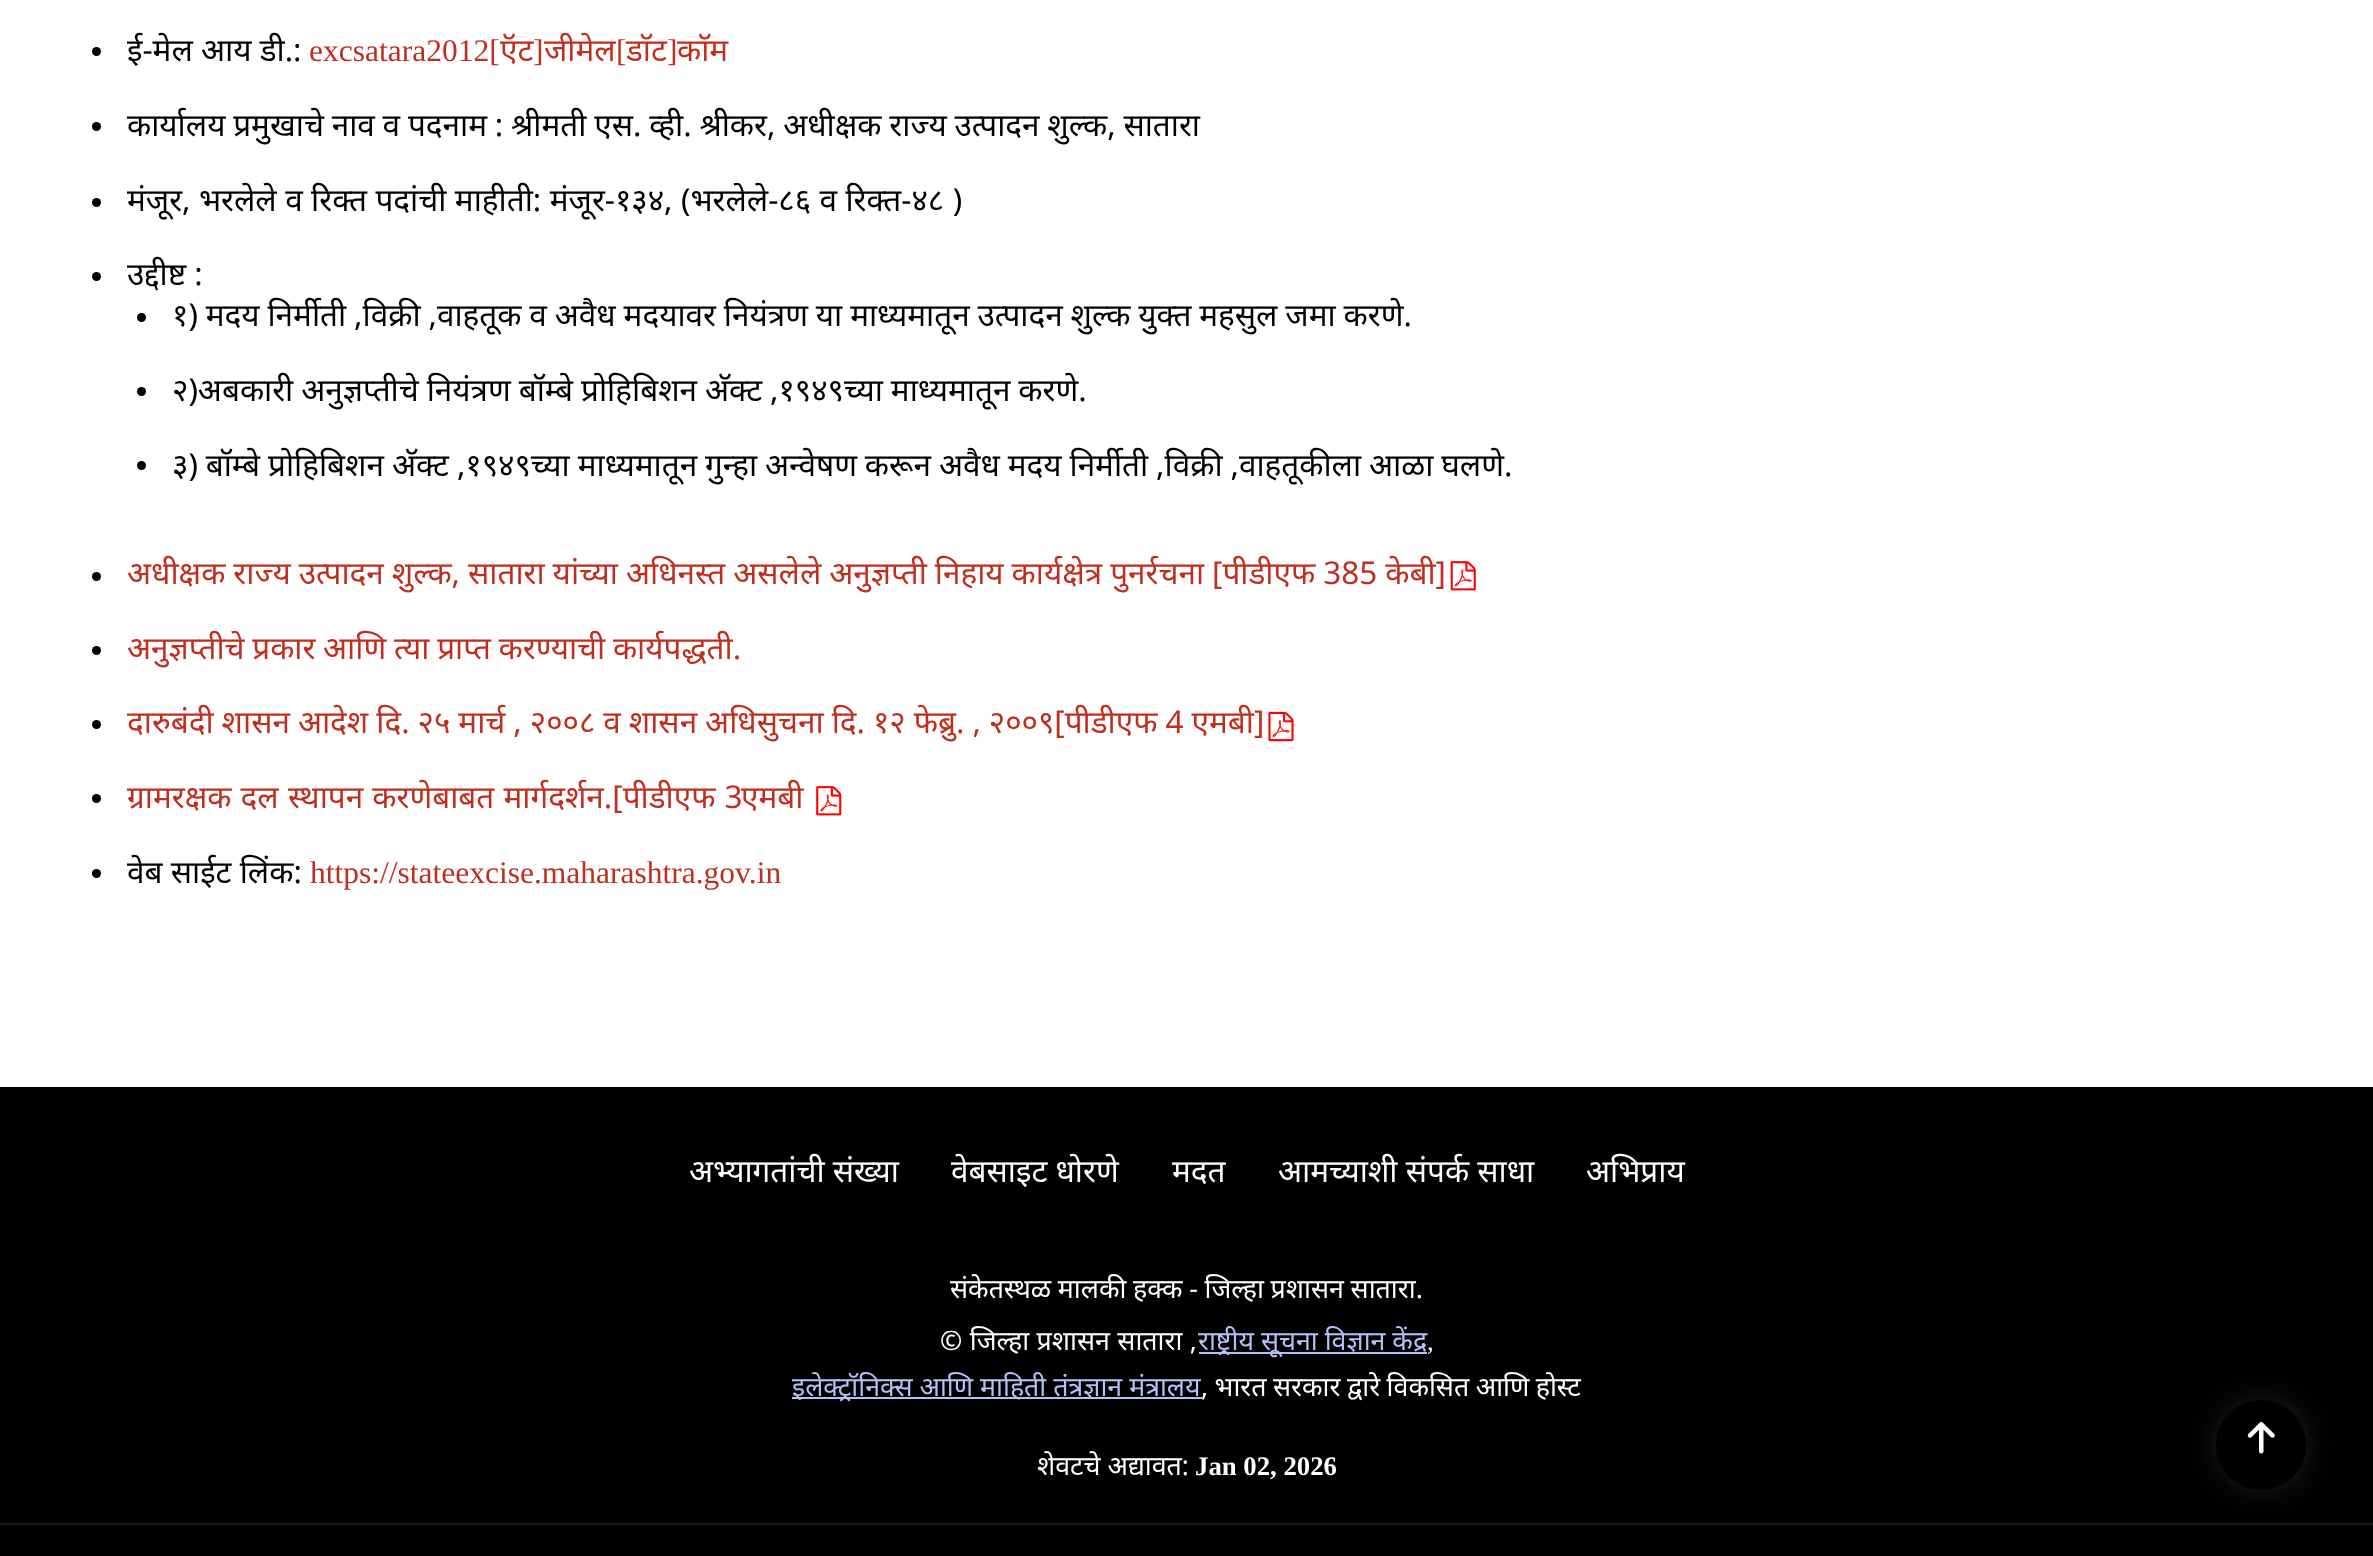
<svg xmlns="http://www.w3.org/2000/svg" width="2373" height="1556">
<style>
.a{font:31.5px Noto Sans;fill:#000}
.b{font:31.5px Liberation Serif;fill:#c02e1f}
.c{font:31.5px Noto Sans;fill:#c02e1f}
.d{font:31.5px Noto Sans;fill:#fff}
.e{font:26.75px Noto Sans;fill:#fff}
.f{font:26.75px Noto Sans;fill:#b4c1f5}
.g{font:26.75px Liberation Serif;fill:#fff}
.h{font:bold 26.75px Liberation Serif;fill:#fff}
</style>
<rect width="100%" height="100%" fill="#fff"/>
<circle fill="#000" cx="96.5" cy="51.5" r="4.5"/>
<circle fill="#000" cx="96.5" cy="126.5" r="4.5"/>
<circle fill="#000" cx="96.5" cy="202.5" r="4.5"/>
<circle fill="#000" cx="96.5" cy="276.5" r="4.5"/>
<circle fill="#000" cx="141.5" cy="317.5" r="4.5"/>
<circle fill="#000" cx="141.5" cy="391.5" r="4.5"/>
<circle fill="#000" cx="141.5" cy="465.5" r="4.5"/>
<circle fill="#000" cx="96.5" cy="576.5" r="4.5"/>
<image href="1.png" x="1450" y="561" width="26" height="30"/>
<circle fill="#000" cx="96.5" cy="650.5" r="4.5"/>
<circle fill="#000" cx="96.5" cy="724.5" r="4.5"/>
<image href="2.png" x="1268" y="711" width="26" height="31"/>
<circle fill="#000" cx="96.5" cy="798.5" r="4.5"/>
<image href="3.png" x="816" y="786" width="26" height="30"/>
<circle fill="#000" cx="96.5" cy="873.5" r="4.5"/>
<path fill="#000" d="M0 1087h2373v469H0z"/>
<path fill="#b4c1f5" d="M1199 1352h228v2H1199z"/>
<path fill="#b4c1f5" d="M792 1397h410v2H792z"/>
<path fill="#1a1a1a" d="M0 1523h2373v2H0z"/>
<rect fill="#3c3c3c" filter="blur(21.5px)" x="2228" y="1411" width="67" height="67" rx="33.5"/>
<circle fill="#000" cx="2261" cy="1445" r="45"/>
<image href="4.png" x="2247" y="1422" width="28" height="32"/>
<text class="a" x="127" y="61">ई-मेल आय डी.:</text>
<text class="b" x="309" y="61">excsatara2012[</text>
<text class="c" x="500" y="61">ऍट</text>
<text class="b" x="533" y="61">]</text>
<text class="c" x="544" y="61">जीमेल</text>
<text class="b" x="616" y="61">[</text>
<text class="c" x="626" y="61">डाॅट</text>
<text class="b" x="667" y="61">]</text>
<text class="c" x="677" y="61">काॅम</text>
<text class="a" x="127" y="136" word-spacing="-0.4">कार्यालय प्रमुखाचे नाव व पदनाम : श्रीमती एस. व्ही. श्रीकर, अधीक्षक राज्य उत्पादन शुल्क, सातारा</text>
<text class="a" x="127" y="211" word-spacing="0.25">मंजूर, भरलेले व रिक्त पदांची माहीती: मंजूर-१३४, (भरलेले-८६ व रिक्त-४८ )</text>
<text class="a" x="127" y="285">उद्दीष्ट :</text>
<text class="a" x="172" y="326" word-spacing="-0.3">१) मदय निर्मीती ,विक्री ,वाहतूक व अवैध मदयावर नियंत्रण या माध्यमातून उत्पादन शुल्क युक्त महसुल जमा करणे.</text>
<text class="a" x="172" y="401" word-spacing="-0.25">२)अबकारी अनुज्ञप्तीचे नियंत्रण बॉम्बे प्रोहिबिशन अ‍ॅक्ट ,१९४९च्या माध्यमातून करणे.</text>
<text class="a" x="172" y="476" word-spacing="-0.3">३) बॉम्बे प्रोहिबिशन अ‍ॅक्ट ,१९४९च्या माध्यमातून गुन्हा अन्वेषण करून अवैध मदय निर्मीती ,विक्री ,वाहतूकीला आळा घलणे.</text>
<text class="c" x="127" y="584" word-spacing="-0.2">अधीक्षक राज्य उत्पादन शुल्क, सातारा यांच्या अधिनस्त असलेले अनुज्ञप्ती निहाय कार्यक्षेत्र पुनर्रचना [पीडीएफ 385 केबी]</text>
<text class="c" x="127" y="659" word-spacing="-0.5">अनुज्ञप्तीचे प्रकार आणि त्या प्राप्त करण्याची कार्यपद्धती.</text>
<text class="c" x="127" y="733" word-spacing="-0.2">दारुबंदी शासन आदेश दि. २५ मार्च , २००८ व शासन अधिसुचना दि. १२ फेब्रु. , २००९[पीडीएफ 4 एमबी]</text>
<text class="c" x="127" y="808" word-spacing="1">ग्रामरक्षक दल स्थापन करणेबाबत मार्गदर्शन.[पीडीएफ 3</text>
<text class="c" x="741" y="808">एमबी</text>
<text class="a" x="127" y="883">वेब साईट लिंक:</text>
<text class="b" x="310" y="883">https://stateexcise.maharashtra.gov.in</text>
<text class="d" x="689" y="1182">अभ्यागतांची संख्या</text>
<text class="d" x="951" y="1182">वेबसाइट धोरणे</text>
<text class="d" x="1172" y="1182">मदत</text>
<text class="d" x="1278" y="1182">आमच्याशी संपर्क साधा</text>
<text class="d" x="1586" y="1182">अभिप्राय</text>
<text class="e" x="950" y="1298" word-spacing="-0.25">संकेतस्थळ मालकी हक्क - जिल्हा प्रशासन सातारा.</text>
<text class="e" x="940" y="1350" word-spacing="0.5">© जिल्हा प्रशासन सातारा ,</text>
<text class="f" x="1198" y="1350">राष्ट्रीय सूचना विज्ञान केंद्र</text>
<text class="g" x="1427" y="1350">,</text>
<text class="f" x="792" y="1396">इलेक्ट्रॉनिक्स आणि माहिती तंत्रज्ञान मंत्रालय</text>
<text class="e" x="1201" y="1396" word-spacing="-0.5">, भारत सरकार द्वारे विकसित आणि होस्ट</text>
<text class="e" x="1037" y="1475">शेवटचे अद्यावत:</text>
<text class="h" x="1195" y="1475">Jan 02, 2026</text>
</svg>
